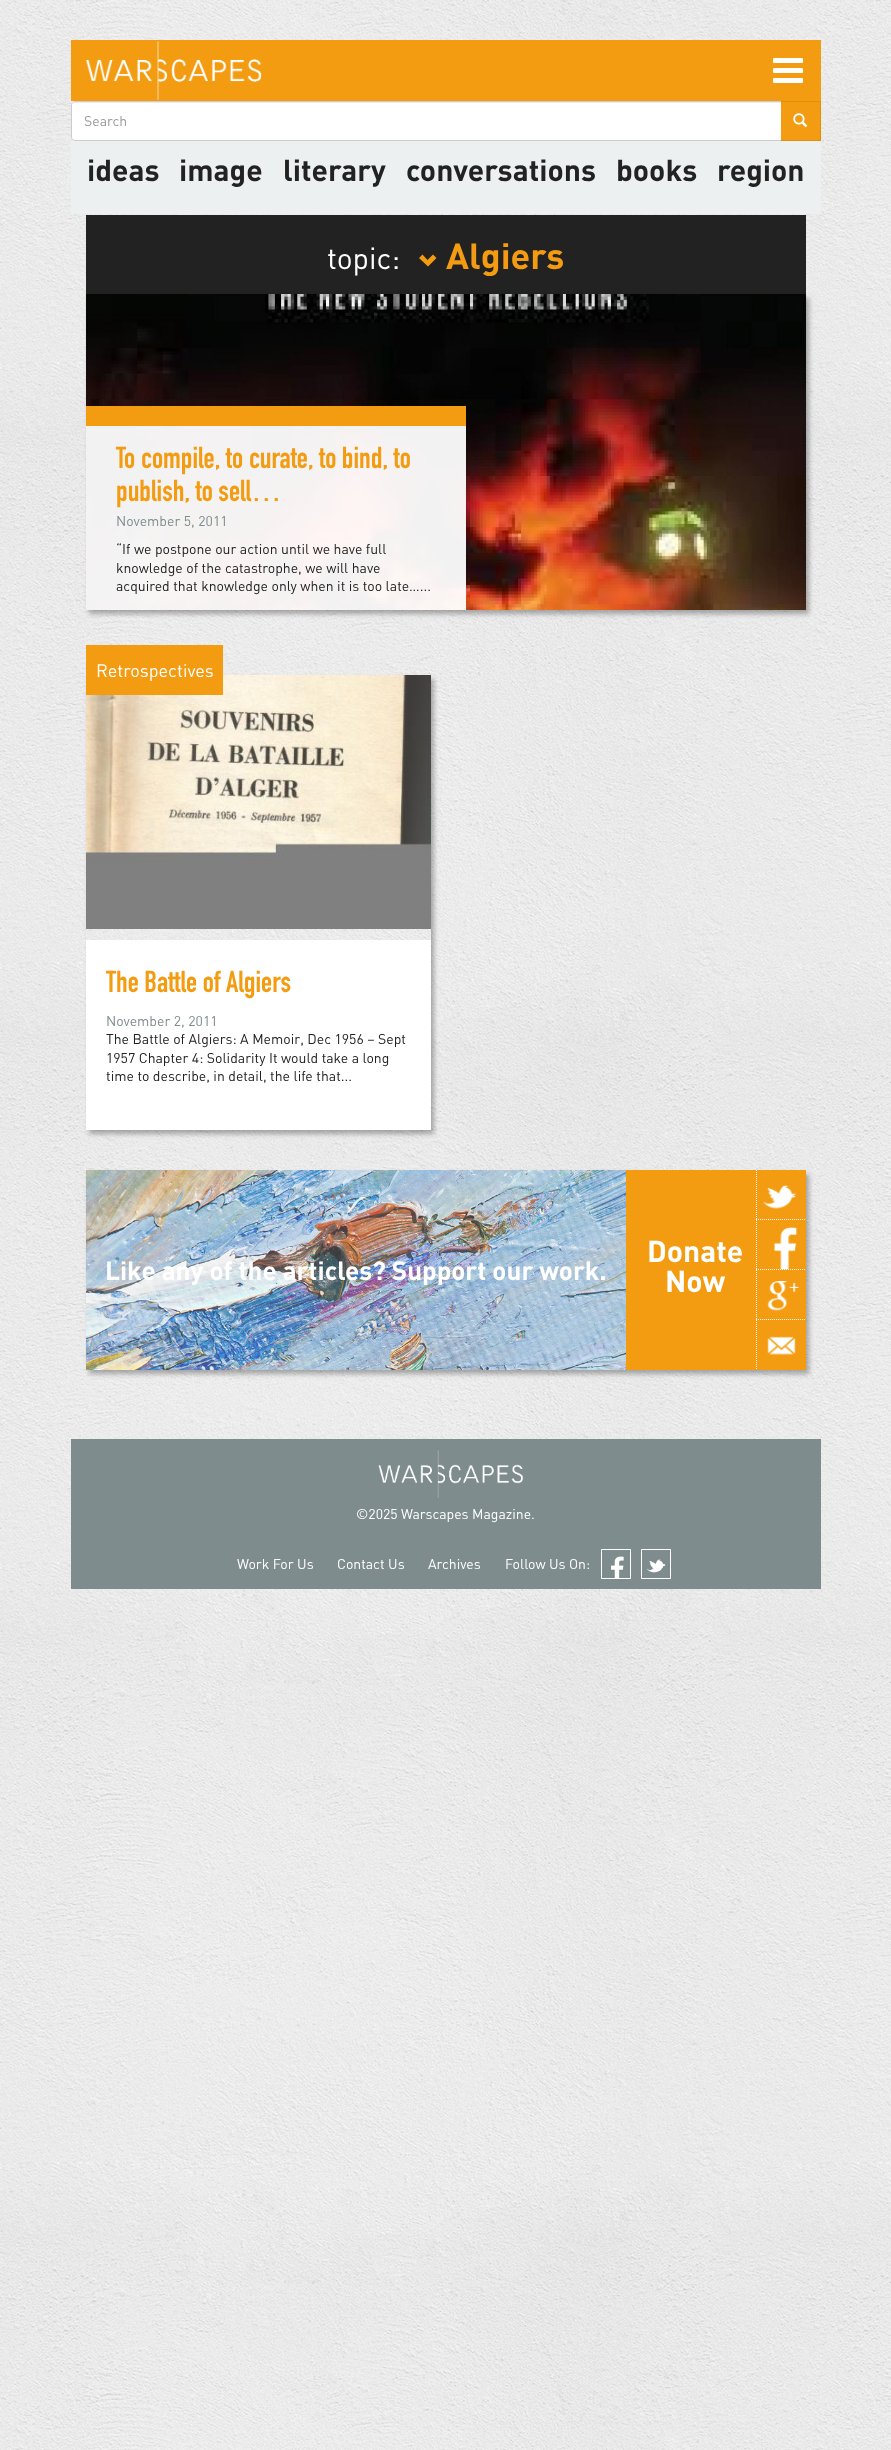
<svg xmlns="http://www.w3.org/2000/svg" width="891" height="2450">
<style>
.a{font:14px DIN;fill:#999}
.b{font:bold 30px DIN;fill:#222}
.c{font:30px DIN;fill:#fff}
.d{font:bold 36px DIN;fill:#f39c12}
.e{font:30px 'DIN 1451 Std';fill:#f39c12}
.f{font:14px DIN;fill:#7f8c8d}
.g{font:14px DIN;fill:#222}
.h{font:18px DIN;fill:#fff}
.i{font:bold 26px DIN;fill:#fff}
.j{font:bold 30px DIN;fill:#fff}
.k{font:14px DIN;fill:#fff}
</style>
<defs>
<clipPath id="clip1"><path d="M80 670h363v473h-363zm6 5h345v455h-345z" clip-rule="evenodd"/></clipPath>
<clipPath id="clip2"><path d="M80 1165h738v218h-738zm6 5h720v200h-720z" clip-rule="evenodd"/></clipPath>
<clipPath id="clip3"><path d="M106 970h300v33H106z"/></clipPath>
</defs>
<rect width="100%" height="100%" fill="#fff"/>
<image href="1.png" x="0" y="0" width="891" height="2450"/>
<path fill="#f39c12" d="M71 40h750v61H71z"/>
<image href="2.png" x="85" y="41" width="177" height="59"/>
<rect fill="#fff" x="773" y="58" width="30" height="5" rx="1"/>
<rect fill="#fff" x="773" y="68" width="30" height="5" rx="1"/>
<rect fill="#fff" x="773" y="78" width="30" height="5" rx="1"/>
<path fill="#fff" d="M75 101h707v40h-707c-2 0-4-2-4-4v-32c0-2 2-4 4-4z"/>
<path fill="#ececec" d="M75 103h706v-1h-706c-2 0-3 2-3 4c0-2 1-3 3-3z"/>
<path fill="none" stroke="#ccc" d="M75 101.5h706.5v39h-706.5c-2 0-3.5-1.5-3.5-3.5v-32c0-2 1.5-3.5 3.5-3.5z"/>
<path fill="#f39c12" d="M781 102h39v38H781z"/>
<path fill="#e08e0b" d="M781 101h40v1H781z"/>
<path fill="#e08e0b" d="M820 101h1v40H820z"/>
<path fill="#e08e0b" d="M781 140h40v1H781z"/>
<image href="3.png" x="793" y="113" width="15" height="15"/>
<path fill="#ecf0f1" d="M71 141h750v73H71z"/>
<path fill="#222" d="M86 215h720v79H86z"/>
<path fill="#f39c12" d="M428 266.5l8.5-8.5l-3.5-3.5l-5.5 5.5l-5-5.5l-3.5 3.5z"/>
<path fill="#0000004d" filter="blur(2.5px)" d="M89 298h720v316H89z"/>
<image href="4.png" x="86" y="294" width="720" height="316"/>
<path fill="#fffffff2" d="M86 426h380v184H86z"/>
<path fill="#f39c12" d="M86 406h380v20H86z"/>
<g clip-path="url(#clip1)">
<path fill="#0000004d" filter="blur(2.5px)" d="M89 679h345v455H89z"/>
</g>
<image href="5.png" x="86" y="675" width="345" height="254"/>
<path fill="#f39c12" d="M86 645h137v50H86z"/>
<path fill="#fff" d="M86 940h345v190H86z"/>
<g clip-path="url(#clip2)">
<path fill="#0000004d" filter="blur(2.5px)" d="M89 1174h720v200H89z"/>
</g>
<image href="6.png" x="86" y="1170" width="540" height="200"/>
<path fill="#f39c12" d="M626 1170h180v200H626z"/>
<image href="7.png" x="763" y="1185" width="34" height="24"/>
<path fill="none" stroke="#fff" stroke-dasharray="1 1" d="M756 1219.5h50m-49.5-49.5v50"/>
<image href="8.png" x="773" y="1227" width="25" height="43"/>
<path fill="none" stroke="#fff" stroke-dasharray="1 1" d="M756 1269.5h50m-49.5-49.5v50"/>
<image href="9.png" x="767" y="1281" width="33" height="30"/>
<path fill="none" stroke="#fff" stroke-dasharray="1 1" d="M756 1319.5h50m-49.5-49.5v50"/>
<image href="10.png" x="767" y="1336" width="29" height="19"/>
<path fill="none" stroke="#fff" stroke-dasharray="1 1" d="M756.5 1320v50"/>
<path fill="#7f8c8d" d="M71 1439h750v150H71z"/>
<image href="11.png" x="378" y="1450" width="146" height="48"/>
<image href="12.png" x="611" y="1556" width="13" height="22"/>
<path fill="none" stroke="#fff" d="M601.5 1549.5h29v29H601.5z"/>
<image href="13.png" x="646" y="1559" width="20" height="14"/>
<path fill="none" stroke="#fff" d="M641.5 1549.5h29v29H641.5z"/>
<text class="a" x="84" y="126">Search</text>
<text class="b" x="87" y="181">ideas</text>
<text class="b" x="179" y="181">image</text>
<text class="b" x="283" y="181">literary</text>
<text class="b" x="406" y="181">conversations</text>
<text class="b" x="616" y="181">books</text>
<text class="b" x="717" y="181">region</text>
<text class="c" x="327" y="269">topic:</text>
<text class="d" x="446" y="269">Algiers</text>
<text class="e" x="116" y="468">To compile, to curate, to bind, to</text>
<text class="e" x="116" y="501">publish, to sell…</text>
<text class="f" x="116" y="526">November 5, 2011</text>
<text class="g" x="116" y="554">“If we postpone our action until we have full</text>
<text class="g" x="116" y="573">knowledge of the catastrophe, we will have</text>
<text class="g" x="116" y="591">acquired that knowledge only when it is too late…...</text>
<text class="h" x="96" y="677">Retrospectives</text>
<g clip-path="url(#clip3)">
<text class="e" x="106" y="992">The Battle of Algiers</text>
</g>
<text class="f" x="106" y="1026">November 2, 2011</text>
<text class="g" x="106" y="1044">The Battle of Algiers: A Memoir, Dec 1956 – Sept</text>
<text class="g" x="106" y="1063">1957 Chapter 4: Solidarity It would take a long</text>
<text class="g" x="106" y="1081">time to describe, in detail, the life that...</text>
<text class="i" x="105" y="1280">Like any of the articles? Support our work.</text>
<text class="j" x="647" y="1262">Donate</text>
<text class="j" x="665" y="1292">Now</text>
<text class="k" x="356" y="1519">©2025 Warscapes Magazine.</text>
<text class="k" x="237" y="1569">Work For Us</text>
<text class="k" x="337" y="1569">Contact Us</text>
<text class="k" x="428" y="1569">Archives</text>
<text class="k" x="505" y="1569">Follow Us On:</text>
</svg>
